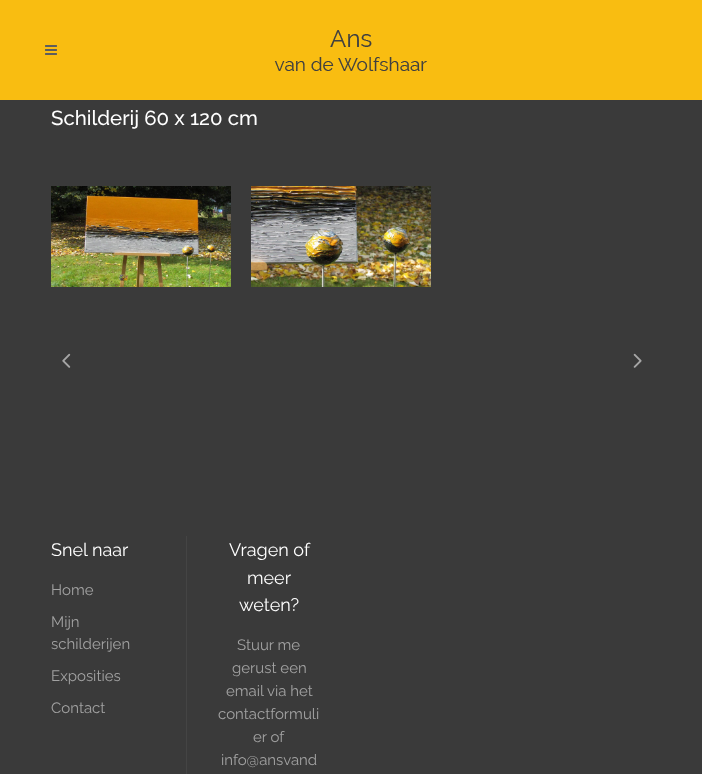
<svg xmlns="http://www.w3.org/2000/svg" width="702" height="774">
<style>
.a{font:500 20.4px Raleway;fill:#fff}
.b{font:18px Raleway;fill:#fff}
.c{font:15px Raleway;fill:#a2a2a2}
</style>
<rect width="100%" height="100%" fill="#3a3a3a"/>
<path fill="#f9bd11" d="M0 0h702v100H0z"/>
<image href="1.png" x="45" y="45" width="12" height="10"/>
<image href="2.png" x="274" y="30" width="153" height="41"/>
<image href="3.png" x="51" y="186" width="180" height="101"/>
<image href="4.png" x="251" y="186" width="180" height="101"/>
<image href="5.png" x="62" y="353" width="9" height="15"/>
<image href="6.png" x="633" y="353" width="9" height="15"/>
<path fill="#444" d="M186 536h1v238H186z"/>
<text class="a" x="51" y="125">Schilderij 60 x 120 cm</text>
<text class="b" x="51" y="556">Snel naar</text>
<text class="c" x="51" y="595">Home</text>
<text class="c" x="51" y="627">Mijn</text>
<text class="c" x="51" y="649">schilderijen</text>
<text class="c" x="51" y="681">Exposities</text>
<text class="c" x="51" y="713">Contact</text>
<text class="b" x="229" y="556">Vragen of</text>
<text class="b" x="247" y="584">meer</text>
<text class="b" x="239" y="611">weten?</text>
<text class="c" x="237" y="650">Stuur me</text>
<text class="c" x="232" y="673">gerust een</text>
<text class="c" x="226" y="696">email via het</text>
<text class="c" x="218" y="719">contactformuli</text>
<text class="c" x="253" y="742">er of</text>
<text class="c" x="221" y="765">info@ansvand</text>
</svg>
